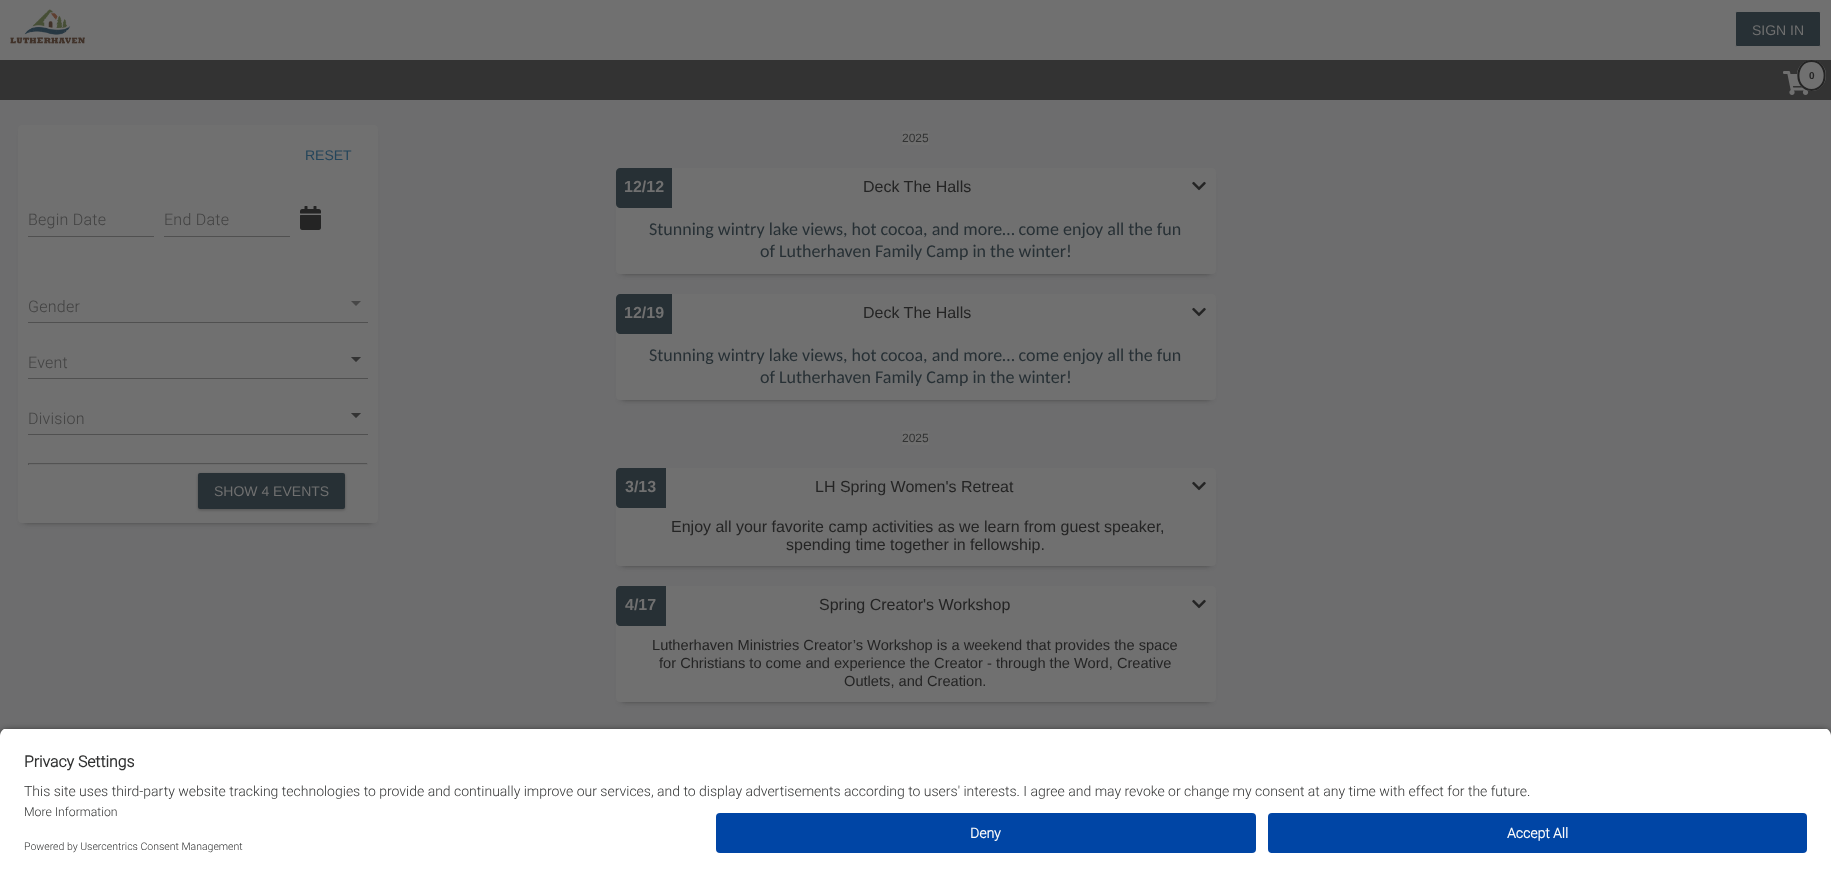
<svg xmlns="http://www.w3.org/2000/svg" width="1831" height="877">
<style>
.a{font:14px Liberation Sans;fill:#707070}
.b{font:bold 10px Liberation Sans;fill:#242424}
.c{font:14px Liberation Sans;fill:#24455b}
.d{font:300 16px Roboto;letter-spacing:0.25px;fill:#424242}
.e{font:12px Liberation Sans;fill:#313232}
.f{font:bold 16px Liberation Sans;fill:#707070}
.g{font:16px Liberation Sans;fill:#242424}
.h{font:18px Carlito;fill:#273035}
.i{font:14.65px Liberation Sans;fill:#242424}
.j{font:bold 15.75px Roboto;fill:#313232}
.k{font:300 14px Roboto;fill:#313232}
.l{font:300 12.25px Roboto;fill:#313232}
.m{font:300 10.5px Roboto;fill:#313232}
.n{font:bold 14px Roboto;fill:#fafafa}
</style>
<defs>
<clipPath id="clip1"><path d="M8 728h1815c4.5 0 8 3.5 8 8v69h-1831v-69c0-4.5 3.5-8 8-8z"/></clipPath>
</defs>
<rect width="100%" height="100%" fill="#6d6d6e"/>
<path fill="#707070" d="M0 0h1831v60H0z"/>
<image href="1.png" x="10" y="9" width="75" height="35"/>
<rect fill="#273035" stroke="#707070" x="1735.5" y="11.5" width="85" height="35" rx="1.5"/>
<path fill="#333" d="M0 60h1831v40H0z"/>
<image href="2.png" x="1783" y="71" width="26" height="24"/>
<ellipse fill="#707070" cx="1811.5" cy="75.5" rx="14.5" ry="15.5"/>
<path fill="none" stroke="#242424" stroke-width="2" d="M1811.5 61c17.5 0 17.5 29 0 29c-17.5 0-17.5-29 0-29z"/>
<path fill="#242424" filter="blur(3px)" d="M24 135h348v386H24z"/>
<rect fill="#707070" x="18" y="125" width="360" height="398" rx="4"/>
<path fill="#505050" d="M28 236h126v1H28z"/>
<path fill="#505050" d="M164 236h126v1H164z"/>
<image href="3.png" x="300" y="206" width="21" height="24"/>
<path fill="#474747" fill-rule="evenodd" d="M351 301l5 5l5-5z"/>
<path fill="#505050" d="M28 322h340v1H28z"/>
<path fill="#474747" fill-rule="evenodd" d="M351 357l5 5l5-5z"/>
<path fill="#2424248a" fill-rule="evenodd" d="M351 357l5 5l5-5z"/>
<path fill="#505050" d="M28 378h340v1H28z"/>
<path fill="#474747" fill-rule="evenodd" d="M351 413l5 5l5-5z"/>
<path fill="#2424248a" fill-rule="evenodd" d="M351 413l5 5l5-5z"/>
<path fill="#505050" d="M28 434h340v1H28z"/>
<path fill="#535353" d="M28 463h340v1H28z"/>
<path fill="#6b6b6b" d="M367 463h1v2H367z"/>
<path fill="#6b6b6b" d="M28 464h340v1H28z"/>
<path fill="#535353" d="M28 463h1v2H28z"/>
<rect fill="#525252" filter="blur(1.5px)" x="198" y="474" width="147" height="36" rx="2"/>
<rect fill="#273035" x="198" y="473" width="147" height="36" rx="2"/>
<path fill="#707070" d="M902 131h27v14H902z"/>
<path fill="#242424" filter="blur(3px)" d="M622 178h588v94H622z"/>
<rect fill="#707070" x="616" y="168" width="600" height="106" rx="4"/>
<path fill="#273035" d="M620 168h52v40h-52c-2 0-4-2-4-4v-32c0-2 2-4 4-4z"/>
<image href="4.png" x="1192" y="181" width="14" height="10"/>
<path fill="#242424" filter="blur(3px)" d="M622 304h588v94H622z"/>
<rect fill="#707070" x="616" y="294" width="600" height="106" rx="4"/>
<path fill="#273035" d="M620 294h52v40h-52c-2 0-4-2-4-4v-32c0-2 2-4 4-4z"/>
<image href="4.png" x="1192" y="307" width="14" height="10"/>
<path fill="#707070" d="M902 431h27v14H902z"/>
<path fill="#242424" filter="blur(3px)" d="M622 478h588v86H622z"/>
<rect fill="#707070" x="616" y="468" width="600" height="98" rx="4"/>
<path fill="#273035" d="M620 468h46v40h-46c-2 0-4-2-4-4v-32c0-2 2-4 4-4z"/>
<image href="4.png" x="1192" y="481" width="14" height="10"/>
<path fill="#242424" filter="blur(3px)" d="M622 596h588v104H622z"/>
<rect fill="#707070" x="616" y="586" width="600" height="116" rx="4"/>
<path fill="#273035" d="M620 586h46v40h-46c-2 0-4-2-4-4v-32c0-2 2-4 4-4z"/>
<image href="4.png" x="1192" y="599" width="14" height="10"/>
<rect fill="#000000cc" filter="blur(3.5px)" y="731" width="1831" height="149" rx="8"/>
<g clip-path="url(#clip1)">
<path fill="#fff" d="M0 729h1831v76H0z"/>
</g>
<path fill="#fff" d="M0 805h1831v72H0z"/>
<rect fill="#0045a5" x="716" y="813" width="540" height="40" rx="4"/>
<rect fill="#0045a5" x="1268" y="813" width="539" height="40" rx="4"/>
<text class="a" x="1752" y="35">SIGN IN</text>
<text class="b" x="1809" y="79">0</text>
<text class="c" x="305" y="160">RESET</text>
<text class="d" x="28" y="225">Begin Date</text>
<text class="d" x="164" y="225">End Date</text>
<text class="d" x="28" y="312">Gender</text>
<text class="d" x="28" y="368">Event</text>
<text class="d" x="28" y="424">Division</text>
<text class="a" x="214" y="496">SHOW 4 EVENTS</text>
<text class="e" x="902" y="142">2025</text>
<text class="f" x="624" y="192">12/12</text>
<text class="g" x="863" y="192">Deck The Halls</text>
<text class="h" x="649" y="235">Stunning wintry lake views, hot cocoa, and more… come enjoy all the fun</text>
<text class="h" x="760" y="257">of Lutherhaven Family Camp in the winter!</text>
<text class="f" x="624" y="318">12/19</text>
<text class="g" x="863" y="318">Deck The Halls</text>
<text class="h" x="649" y="361">Stunning wintry lake views, hot cocoa, and more… come enjoy all the fun</text>
<text class="h" x="760" y="383">of Lutherhaven Family Camp in the winter!</text>
<text class="e" x="902" y="442">2025</text>
<text class="f" x="625" y="492">3/13</text>
<text class="g" x="815" y="492">LH Spring Women's Retreat</text>
<text class="g" x="671" y="532">Enjoy all your favorite camp activities as we learn from guest speaker,</text>
<text class="g" x="786" y="550">spending time together in fellowship.</text>
<text class="f" x="625" y="610">4/17</text>
<text class="g" x="819" y="610">Spring Creator's Workshop</text>
<text class="i" x="652" y="650">Lutherhaven Ministries Creator’s Workshop is a weekend that provides the space</text>
<text class="i" x="659" y="668">for Christians to come and experience the Creator - through the Word, Creative</text>
<text class="i" x="844" y="686">Outlets, and Creation.</text>
<text class="j" x="24" y="767">Privacy Settings</text>
<text class="k" x="24" y="796">This site uses third-party website tracking technologies to provide and continually improve our services, and to display advertisements according to users' interests. I agree and may revoke or change my consent at any time with effect for the future.</text>
<text class="l" x="24" y="816">More Information</text>
<text class="m" x="24" y="850">Powered by Usercentrics Consent Management</text>
<text class="n" x="970" y="838">Deny</text>
<text class="n" x="1507" y="838">Accept All</text>
</svg>
